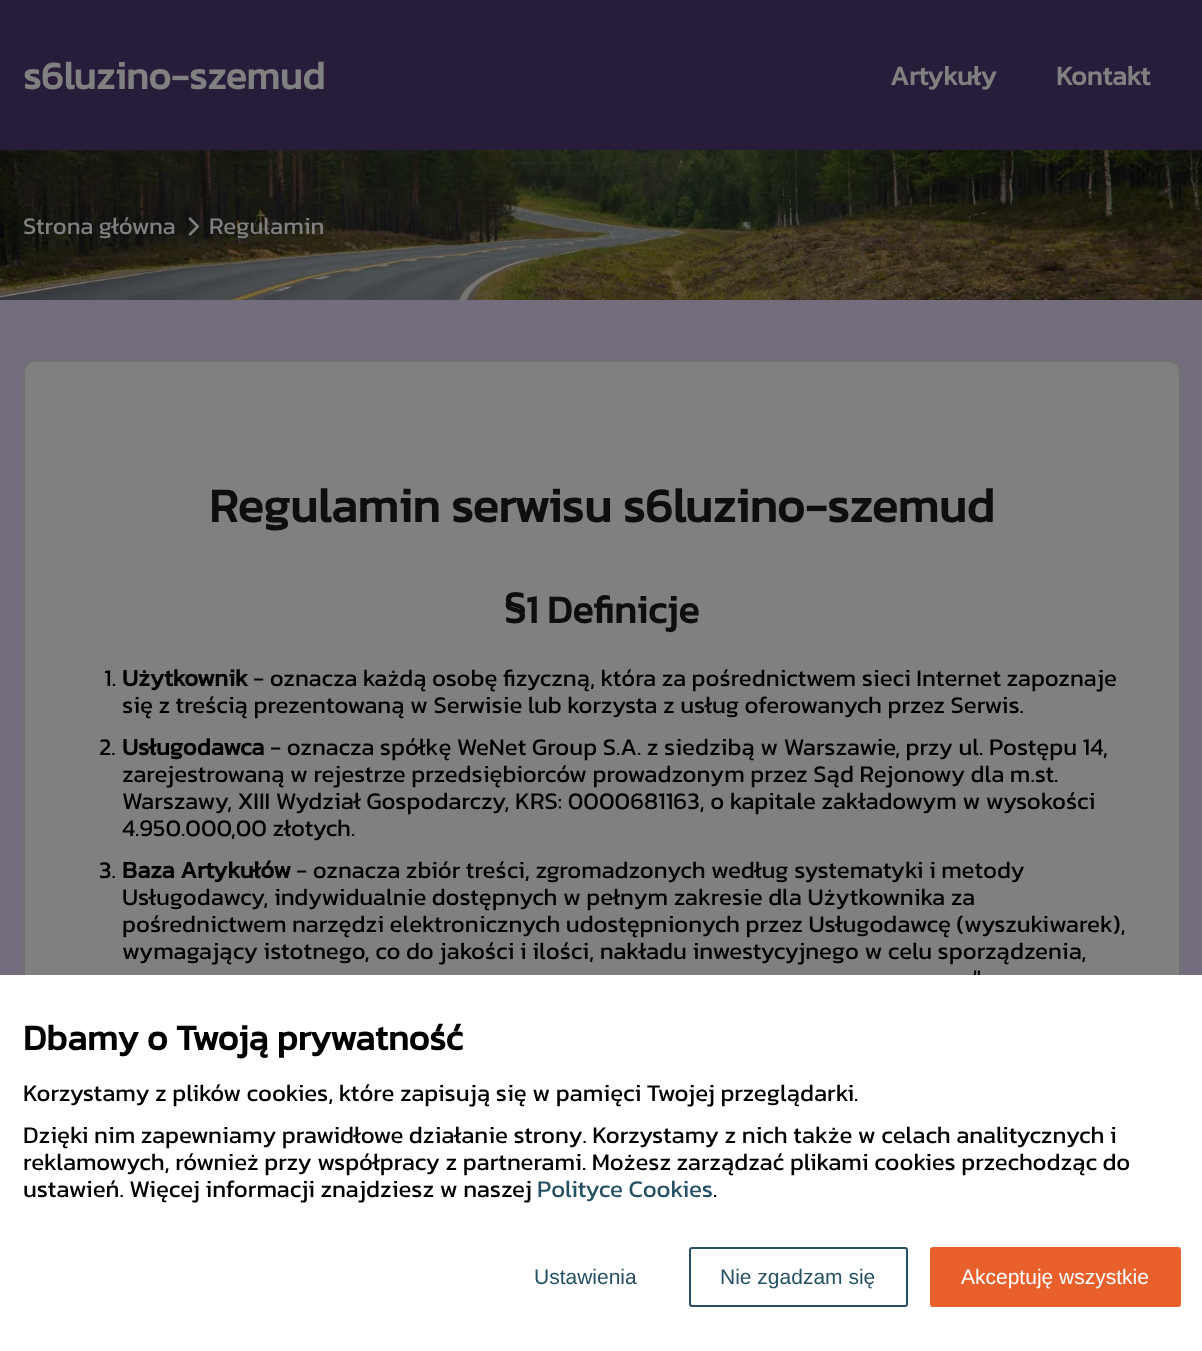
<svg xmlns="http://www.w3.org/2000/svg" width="1202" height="1351">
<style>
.a{font:bold 39px Kanit;fill:#808080}
.b{font:bold 27px Kanit;fill:#808080}
.c{font:24px Kanit;fill:#808080}
.d{font:bold 48px Kanit;fill:#0e0e0e}
.e{font:bold 39px Kanit;fill:#0e0e0e}
.f{font:24px Kanit;fill:#000}
.g{font:bold 24px Kanit;fill:#000}
.h{font:bold 36px Kanit;fill:#000}
.i{font:24px Kanit;fill:#265165}
.j{font:21px Liberation Sans;fill:#265165}
.k{font:21px Liberation Sans;fill:#fff}
</style>
<rect width="100%" height="100%" fill="#746d7e"/>
<path fill="#271c39" d="M0 0h1202v150H0z"/>
<image href="1.png" x="0" y="150" width="1202" height="150"/>
<image href="2.png" x="188" y="217" width="12" height="19"/>
<rect fill="#808080" stroke="#717171" stroke-width="2" x="24" y="361" width="1156" height="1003" rx="11"/>
<text class="a" x="23" y="89">s6luzino-szemud</text>
<text class="b" x="890" y="85">Artykuły</text>
<text class="b" x="1056" y="85">Kontakt</text>
<text class="c" x="23" y="234">Strona główna</text>
<text class="c" x="209" y="234">Regulamin</text>
<text class="d" x="209" y="522">Regulamin serwisu s6luzino-szemud</text>
<text class="e" x="504" y="623">§1 Definicje</text>
<text class="f" x="104" y="686">1.</text>
<text class="g" x="122" y="686">Użytkownik</text>
<text class="f" x="253" y="686">- oznacza każdą osobę fizyczną, która za pośrednictwem sieci Internet zapoznaje</text>
<text class="f" x="122" y="713">się z treścią prezentowaną w Serwisie lub korzysta z usług oferowanych przez Serwis.</text>
<text class="f" x="99" y="755">2.</text>
<text class="g" x="122" y="755">Usługodawca</text>
<text class="f" x="270" y="755">- oznacza spółkę WeNet Group S.A. z siedzibą w Warszawie, przy ul. Postępu 14,</text>
<text class="f" x="122" y="782">zarejestrowaną w rejestrze przedsiębiorców prowadzonym przez Sąd Rejonowy dla m.st.</text>
<text class="f" x="122" y="809">Warszawy, XIII Wydział Gospodarczy, KRS: 0000681163, o kapitale zakładowym w wysokości</text>
<text class="f" x="122" y="836">4.950.000,00 złotych.</text>
<text class="f" x="99" y="878">3.</text>
<text class="g" x="122" y="878">Baza Artykułów</text>
<text class="f" x="296" y="878">- oznacza zbiór treści, zgromadzonych według systematyki i metody</text>
<text class="f" x="122" y="905">Usługodawcy, indywidualnie dostępnych w pełnym zakresie dla Użytkownika za</text>
<text class="f" x="122" y="932">pośrednictwem narzędzi elektronicznych udostępnionych przez Usługodawcę (wyszukiwarek),</text>
<text class="f" x="122" y="959">wymagający istotnego, co do jakości i ilości, nakładu inwestycyjnego w celu sporządzenia,</text>
<text class="f" x="973" y="986">"</text>
<path fill="#fff" d="M0 975h1202v376H0z"/>
<text class="h" x="23" y="1050">Dbamy o Twoją prywatność</text>
<text class="f" x="23" y="1101">Korzystamy z plików cookies, które zapisują się w pamięci Twojej przeglądarki.</text>
<text class="f" x="23" y="1143">Dzięki nim zapewniamy prawidłowe działanie strony. Korzystamy z nich także w celach analitycznych i</text>
<text class="f" x="23" y="1170">reklamowych, również przy współpracy z partnerami. Możesz zarządzać plikami cookies przechodząc do</text>
<text class="f" x="23" y="1197">ustawień. Więcej informacji znajdziesz w naszej</text>
<text class="i" x="537" y="1197">Polityce Cookies</text>
<text class="f" x="713" y="1197">.</text>
<text class="j" x="534" y="1284">Ustawienia</text>
<rect fill="none" stroke="#265165" stroke-width="2" x="690" y="1248" width="217" height="58" rx="2"/>
<text class="j" x="720" y="1284">Nie zgadzam się</text>
<rect fill="#e9602d" stroke="#e9602d" stroke-width="2" x="931" y="1248" width="249" height="58" rx="2"/>
<text class="k" x="961" y="1284">Akceptuję wszystkie</text>
</svg>
